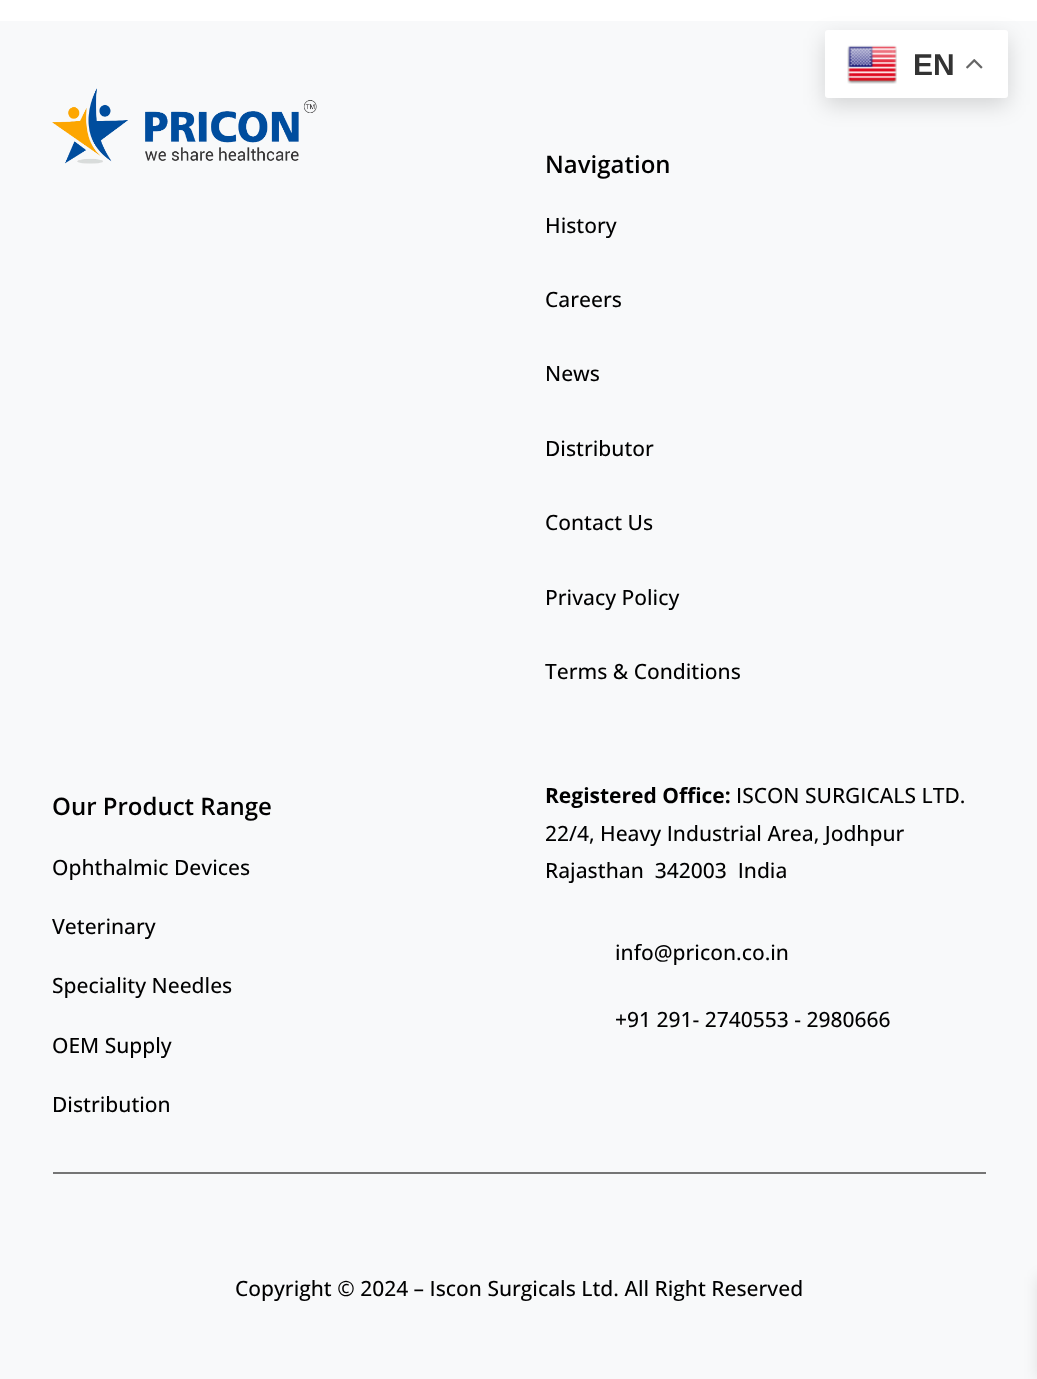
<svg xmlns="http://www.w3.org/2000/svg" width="1037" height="1379">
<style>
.a{font:bold 30px Liberation Sans;fill:#333}
.b{font:600 24px Open Sans;fill:#000}
.c{font:500 21px Open Sans;fill:#000}
.d{font:bold 21px Open Sans;fill:#000}
</style>
<rect width="100%" height="100%" fill="#fff"/>
<path fill="#f8f9fa" d="M0 21h1037v1358H0z"/>
<rect fill="#00000026" filter="blur(11px)" x="825" y="38" width="183" height="67" rx="3"/>
<rect fill="#fff" x="825" y="30" width="183" height="68" rx="3"/>
<image href="1.png" x="847" y="45" width="50" height="39"/>
<image href="2.png" x="966" y="59" width="17" height="10"/>
<path fill="#757575" d="M53 1172h933v2H53z"/>
<image href="3.png" x="52" y="88" width="265" height="76"/>
<path fill="#0000001a" filter="blur(7.5px)" d="M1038 1277h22v102H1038z"/>
<text class="a" x="913" y="75">EN</text>
<text class="b" x="545" y="173">Navigation</text>
<text class="c" x="545" y="233">History</text>
<text class="c" x="545" y="307">Careers</text>
<text class="c" x="545" y="381">News</text>
<text class="c" x="545" y="456">Distributor</text>
<text class="c" x="545" y="530">Contact Us</text>
<text class="c" x="545" y="605">Privacy Policy</text>
<text class="c" x="545" y="679">Terms &amp; Conditions</text>
<text class="b" x="52" y="815">Our Product Range</text>
<text class="c" x="52" y="875">Ophthalmic Devices</text>
<text class="c" x="52" y="934">Veterinary</text>
<text class="c" x="52" y="993">Speciality Needles</text>
<text class="c" x="52" y="1053">OEM Supply</text>
<text class="c" x="52" y="1112">Distribution</text>
<text class="d" x="545" y="803">Registered Office:</text>
<text class="c" x="736" y="803">ISCON SURGICALS LTD.</text>
<text class="c" x="545" y="841">22/4, Heavy Industrial Area, Jodhpur</text>
<text class="c" xml:space="preserve" x="545" y="878">Rajasthan  342003  India</text>
<text class="c" x="615" y="960">info@pricon.co.in</text>
<text class="c" x="615" y="1027">+91 291- 2740553 - 2980666</text>
<text class="c" x="235" y="1296">Copyright © 2024 – Iscon Surgicals Ltd. All Right Reserved</text>
</svg>
